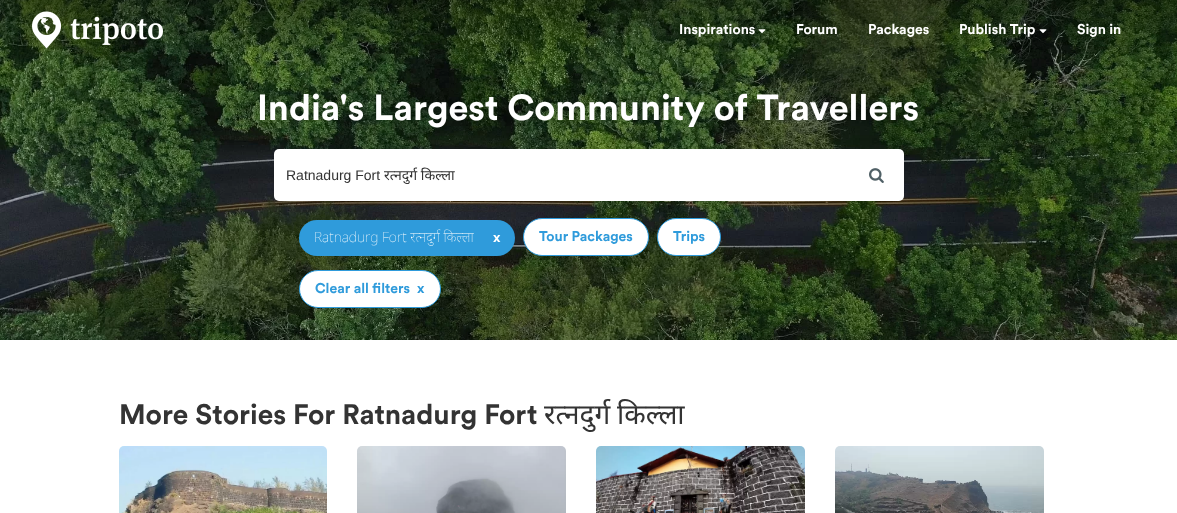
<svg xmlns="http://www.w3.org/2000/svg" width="1177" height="513">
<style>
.a{font:bold 14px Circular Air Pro;fill:#fff}
.b{font:bold 36px Circular Air Pro;fill:#fff}
.c{font:14px Liberation Sans;fill:#333}
.d{font:14px Noto Sans;fill:#333}
.e{font:100 14px Noto Sans;fill:#fff}
.f{font:bold 14px Circular Air Pro;fill:#2f9bdb}
.g{font:bold 28px Circular Air Pro;fill:#333}
.h{font:28px Noto Sans;fill:#333}
</style>
<rect width="100%" height="100%" fill="#fff"/>
<image href="4.png" x="0" y="0" width="1177" height="340"/>
<image href="1.png" x="32" y="11" width="131" height="38"/>
<image href="2.png" x="758" y="29" width="8" height="5"/>
<image href="3.png" x="1039" y="29" width="8" height="5"/>
<rect fill="#fff" x="274" y="149" width="630" height="52" rx="5"/>
<image href="5.png" x="869" y="168" width="15" height="15"/>
<rect fill="#2f9bdb" x="299" y="220" width="216" height="36" rx="18"/>
<rect fill="#fff" stroke="#2f9bdb" x="523.5" y="218.5" width="125" height="37" rx="18.5"/>
<rect fill="#fff" stroke="#2f9bdb" x="657.5" y="218.5" width="63" height="37" rx="18.5"/>
<rect fill="#fff" stroke="#2f9bdb" x="299.5" y="270.5" width="141" height="37" rx="18.5"/>
<image href="6.png" x="119" y="446" width="208" height="67"/>
<image href="7.png" x="357" y="446" width="209" height="67"/>
<image href="8.png" x="596" y="446" width="209" height="67"/>
<image href="9.png" x="835" y="446" width="209" height="67"/>
<text class="a" x="679" y="34">Inspirations</text>
<text class="a" x="796" y="34">Forum</text>
<text class="a" x="868" y="34">Packages</text>
<text class="a" x="959" y="34">Publish Trip</text>
<text class="a" x="1077" y="34">Sign in</text>
<text class="b" x="257" y="120">India's Largest Community of Travellers</text>
<text class="c" x="286" y="180">Ratnadurg Fort</text>
<text class="d" x="384" y="180">रत्नदुर्ग किल्ला</text>
<text class="e" x="314" y="242">Ratnadurg Fort रत्नदुर्ग किल्ला</text>
<text class="a" x="493" y="242">x</text>
<text class="f" x="539" y="241">Tour Packages</text>
<text class="f" x="673" y="241">Trips</text>
<text class="f" x="315" y="293">Clear all filters</text>
<text class="f" x="417" y="293">x</text>
<text class="g" x="119" y="424">More Stories For Ratnadurg Fort</text>
<text class="h" x="544" y="424">रत्नदुर्ग</text>
<text class="h" x="617" y="424">किल्ला</text>
</svg>
